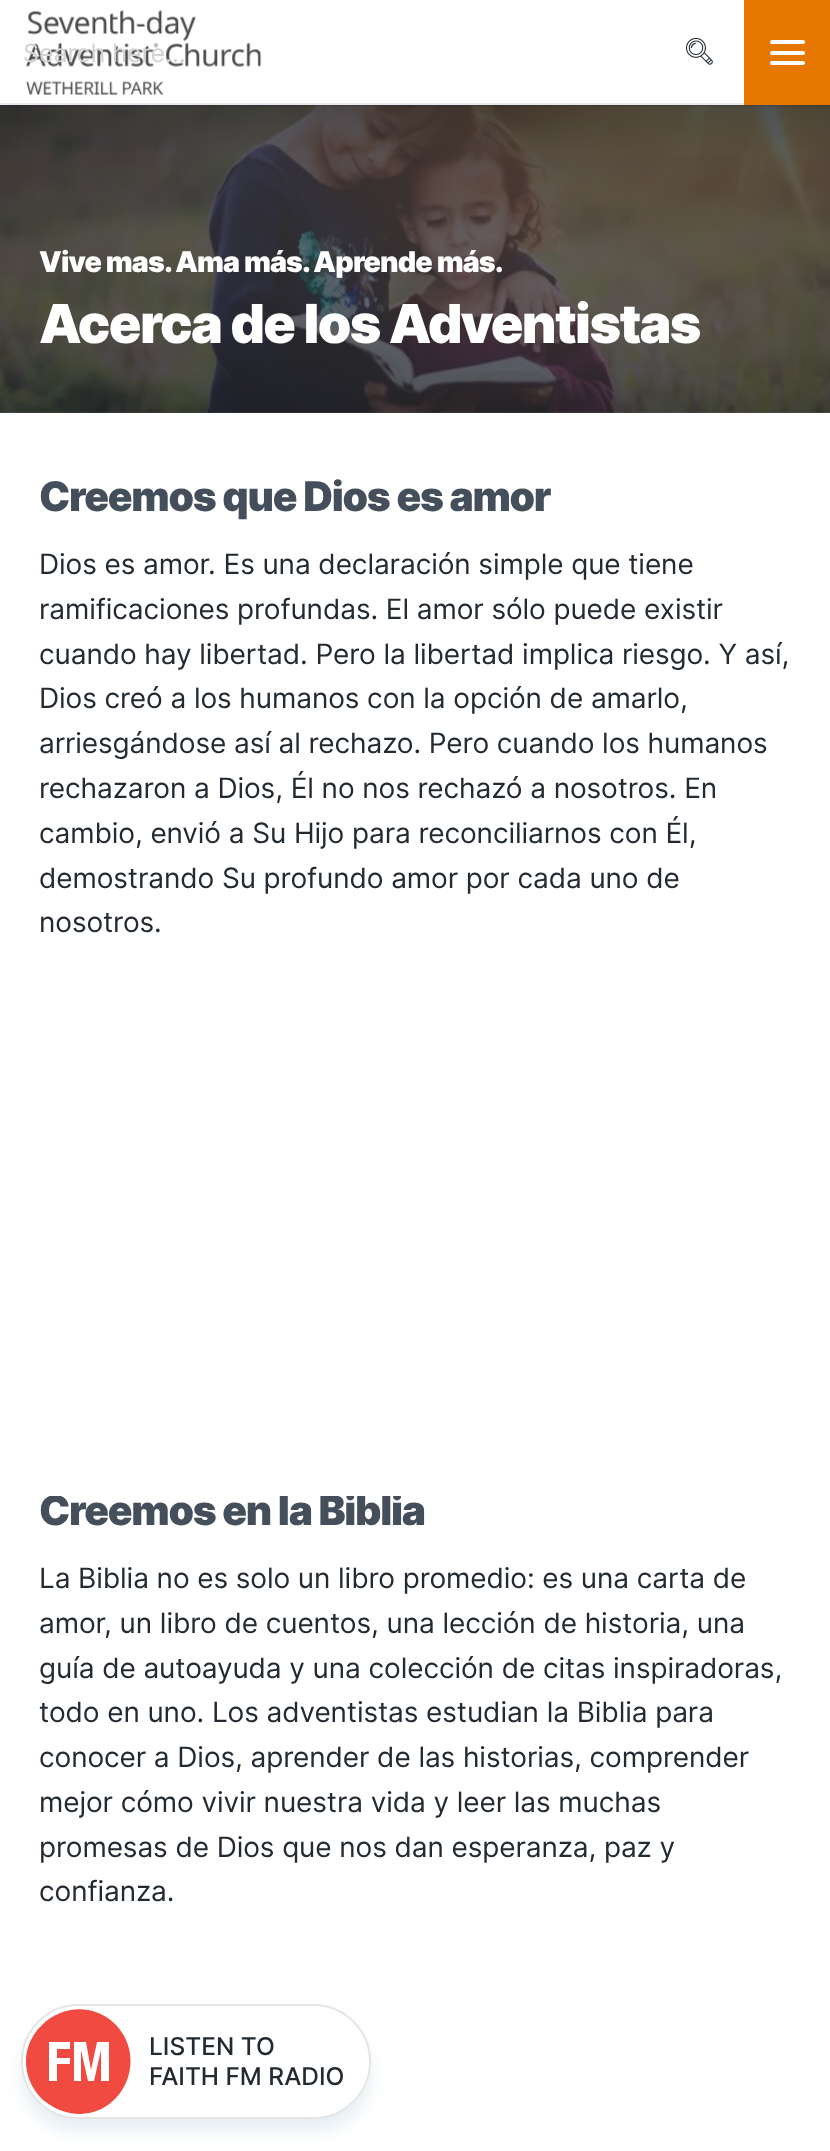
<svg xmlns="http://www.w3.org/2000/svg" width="830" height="2151">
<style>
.a{font:25px Inter;fill:#d3d3d3}
.b{font:900 28.6px Inter;letter-spacing:-0.85px;fill:#fff}
.c{font:900 53.75px Inter;letter-spacing:-1.6px;fill:#fff}
.d{font:900 40.8px Inter;letter-spacing:-1.25px;fill:#454f5c}
.e{font:28px Inter;letter-spacing:-0.1px;fill:#232a32}
.f{font:500 24.5px Inter;fill:#232a32}
</style>
<defs>
<linearGradient id="g1" gradientUnits="userSpaceOnUse" x1="416" y1="105" x2="416" y2="413"><stop offset="0" stop-color="#0e1218" stop-opacity="0.5"/><stop offset="0.19" stop-color="#0e1218" stop-opacity="0.37"/><stop offset="0.34" stop-color="#0e1218" stop-opacity="0.27"/><stop offset="0.47" stop-color="#0e1218" stop-opacity="0.19"/><stop offset="0.56" stop-color="#0e1218" stop-opacity="0.14"/><stop offset="0.65" stop-color="#0e1218" stop-opacity="0.1"/><stop offset="0.73" stop-color="#0e1218" stop-opacity="0.06"/><stop offset="0.8" stop-color="#0e1218" stop-opacity="0.04"/><stop offset="0.86" stop-color="#0e1218" stop-opacity="0.02"/><stop offset="0.91" stop-color="#0e1218" stop-opacity="0.01"/><stop offset="0.95" stop-color="#0e1218" stop-opacity="0"/><stop offset="0.98" stop-color="#0e1218" stop-opacity="0"/><stop offset="1" stop-color="#0e1218" stop-opacity="0"/></linearGradient>
<linearGradient id="g2" gradientUnits="userSpaceOnUse" x1="416" y1="413" x2="416" y2="105"><stop offset="0" stop-color="#0e1218" stop-opacity="0.5"/><stop offset="0.19" stop-color="#0e1218" stop-opacity="0.37"/><stop offset="0.34" stop-color="#0e1218" stop-opacity="0.27"/><stop offset="0.47" stop-color="#0e1218" stop-opacity="0.19"/><stop offset="0.56" stop-color="#0e1218" stop-opacity="0.14"/><stop offset="0.65" stop-color="#0e1218" stop-opacity="0.1"/><stop offset="0.73" stop-color="#0e1218" stop-opacity="0.06"/><stop offset="0.8" stop-color="#0e1218" stop-opacity="0.04"/><stop offset="0.86" stop-color="#0e1218" stop-opacity="0.02"/><stop offset="0.91" stop-color="#0e1218" stop-opacity="0.01"/><stop offset="0.95" stop-color="#0e1218" stop-opacity="0"/><stop offset="0.98" stop-color="#0e1218" stop-opacity="0"/><stop offset="1" stop-color="#0e1218" stop-opacity="0"/></linearGradient>
<clipPath id="clip1"><path d="M0 1496h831v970H0z"/></clipPath>
</defs>
<rect width="100%" height="100%" fill="#fff"/>
<image href="1.png" x="26" y="10" width="236" height="85"/>
<path fill="#e67700" d="M744 0h86v105H744z"/>
<rect fill="#fff" x="770" y="61" width="35" height="4" rx="2"/>
<rect fill="#fff" x="770" y="40" width="35" height="4" rx="2"/>
<rect fill="#fff" x="770" y="51" width="35" height="4" rx="2"/>
<image href="2.png" x="686" y="37" width="27" height="28"/>
<path fill="#e6e7ef" d="M0 103h744v2H0z"/>
<image href="5.png" x="0" y="412" width="830" height="1"/>
<image href="4.png" x="0" y="105" width="830" height="308"/>
<path fill="url(#g1)" d="M0 105h830v263H0z"/>
<image href="3.png" x="0" y="105" width="830" height="2"/>
<path fill="url(#g2)" d="M0 157h830v256H0z"/>
<rect fill="#18658a1a" filter="blur(8px)" x="21" y="2016" width="350" height="116" rx="58"/>
<rect fill="#fff" stroke="#e5e5e5" stroke-width="2" x="22" y="2005" width="348" height="113" rx="56.5"/>
<path fill="#f04a41" fill-rule="evenodd" d="M116 2025c34 36 4 97-46 88c-11-2-22-8-30-16c-19-21-19-52 2-72c21-21 54-21 74 0zm-67 17v39h8v-17h13v-6h-13v-9h13v-7zm25 0v39h7v-31l7 31h6l7-31v31h8v-39h-12l-6 28l-5-28z"/>
<text class="a" x="23" y="62">Search here...</text>
<text class="b" x="39" y="272">Vive mas. Ama más. Aprende más.</text>
<text class="c" x="39" y="343">Acerca de los Adventistas</text>
<text class="d" x="39" y="511">Creemos que Dios es amor</text>
<text class="e" x="39" y="574">Dios es amor. Es una declaración simple que tiene</text>
<text class="e" x="39" y="619">ramificaciones profundas. El amor sólo puede existir</text>
<text class="e" x="39" y="664">cuando hay libertad. Pero la libertad implica riesgo. Y así,</text>
<text class="e" x="39" y="708">Dios creó a los humanos con la opción de amarlo,</text>
<text class="e" x="39" y="753">arriesgándose así al rechazo. Pero cuando los humanos</text>
<text class="e" x="39" y="798">rechazaron a Dios, Él no nos rechazó a nosotros. En</text>
<text class="e" x="39" y="843">cambio, envió a Su Hijo para reconciliarnos con Él,</text>
<text class="e" x="39" y="888">demostrando Su profundo amor por cada uno de</text>
<text class="e" x="39" y="932">nosotros.</text>
<g clip-path="url(#clip1)">
<text class="d" x="39" y="1525">Creemos en la Biblia</text>
</g>
<text class="e" x="39" y="1588">La Biblia no es solo un libro promedio: es una carta de</text>
<text class="e" x="39" y="1633">amor, un libro de cuentos, una lección de historia, una</text>
<text class="e" x="39" y="1678">guía de autoayuda y una colección de citas inspiradoras,</text>
<text class="e" x="39" y="1722">todo en uno. Los adventistas estudian la Biblia para</text>
<text class="e" x="39" y="1767">conocer a Dios, aprender de las historias, comprender</text>
<text class="e" x="39" y="1812">mejor cómo vivir nuestra vida y leer las muchas</text>
<text class="e" x="39" y="1857">promesas de Dios que nos dan esperanza, paz y</text>
<text class="e" x="39" y="1901">confianza.</text>
<text class="f" x="149" y="2055">LISTEN TO</text>
<text class="f" x="149" y="2085">FAITH FM RADIO</text>
</svg>
